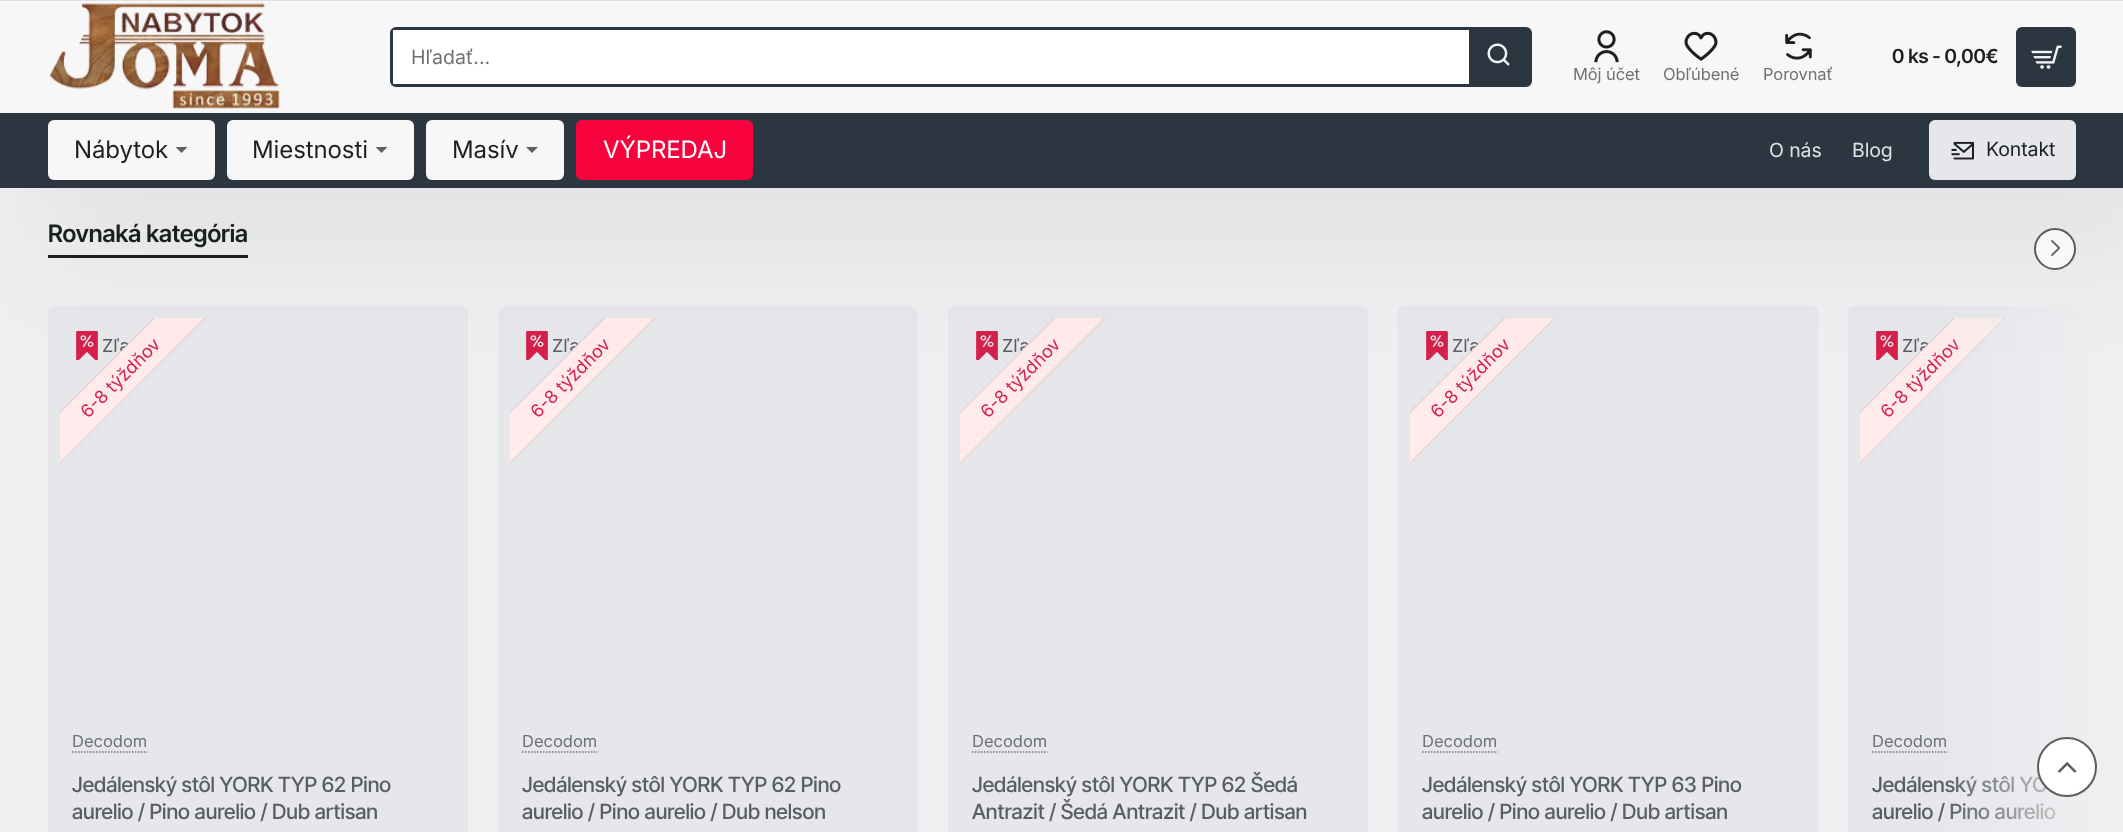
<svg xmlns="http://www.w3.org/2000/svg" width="2123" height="832">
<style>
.a{font:600 24px Inter Tight;fill:#1c2021}
.b{font:18px Inter;fill:#5a5e60}
.c{font:18px Inter;fill:#d5204c}
.d{font:16.5px Inter;fill:#6e7275}
.e{font:500 21px Inter Tight;fill:#5a5e60}
.f{font:19.5px Inter;fill:#6e7275}
.g{font:600 19.5px Inter Tight;letter-spacing:-0.1px;fill:#1c2021}
.h{font:16.5px Inter;letter-spacing:-0.1px;fill:#6e7275}
.i{font:19.5px Inter;letter-spacing:-0.1px;fill:#1c2021}
.j{font:19.5px Inter;letter-spacing:-0.1px;fill:#dfe0e4}
.k{font:24px Inter;letter-spacing:-0.1px;fill:#fff}
.l{font:24px Inter;letter-spacing:-0.1px;fill:#1c2021}
</style>
<defs>
<clipPath id="clip1"><path d="M66 318h384c3.5 0 6 2.5 6 6v390h-396v-390c0-3.5 2.5-6 6-6z"/></clipPath>
<clipPath id="clip2"><path d="M516 318h384c3.5 0 6 2.5 6 6v390h-396v-390c0-3.5 2.5-6 6-6z"/></clipPath>
<clipPath id="clip3"><path d="M966 318h384c3.5 0 6 2.5 6 6v390h-396v-390c0-3.5 2.5-6 6-6z"/></clipPath>
<clipPath id="clip4"><path d="M1416 318h384c3.5 0 6 2.5 6 6v390h-396v-390c0-3.5 2.5-6 6-6z"/></clipPath>
<clipPath id="clip5"><path d="M1866 318h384c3.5 0 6 2.5 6 6v390h-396v-390c0-3.5 2.5-6 6-6z"/></clipPath>
<linearGradient id="g1" gradientUnits="userSpaceOnUse" x1="1944" y1="637" x2="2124" y2="637"><stop offset="0" stop-color="#eeeff1" stop-opacity="0"/><stop offset="0.9" stop-color="#eeeff1"/><stop offset="1" stop-color="#eeeff1"/></linearGradient>
</defs>
<rect width="100%" height="100%" fill="#eeeff1"/>
<path fill="#1c2021" d="M48 255h200v3H48z"/>
<circle fill="#fff" stroke="#5a5e60" stroke-width="2" cx="2055" cy="249" r="20"/>
<image href="8.png" x="2051" y="240" width="9" height="16"/>
<rect fill="#e6e7ea" x="48" y="306" width="420" height="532" rx="6"/>
<image href="9.png" x="76" y="331" width="22" height="29"/>
<path fill="none" stroke="#6e7275" stroke-width="1.5" stroke-dasharray="1.5 1.5" d="M72 752h75.5"/>
<rect fill="#e6e7ea" x="498" y="306" width="420" height="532" rx="6"/>
<image href="9.png" x="526" y="331" width="22" height="29"/>
<path fill="none" stroke="#6e7275" stroke-width="1.5" stroke-dasharray="1.5 1.5" d="M522 752h75.5"/>
<rect fill="#e6e7ea" x="948" y="306" width="420" height="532" rx="6"/>
<image href="9.png" x="976" y="331" width="22" height="29"/>
<path fill="none" stroke="#6e7275" stroke-width="1.5" stroke-dasharray="1.5 1.5" d="M972 752h75.5"/>
<rect fill="#e6e7ea" x="1398" y="306" width="420" height="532" rx="6"/>
<image href="9.png" x="1426" y="331" width="22" height="29"/>
<path fill="none" stroke="#6e7275" stroke-width="1.5" stroke-dasharray="1.5 1.5" d="M1422 752h75.5"/>
<path fill="#e6e7ea" d="M1854 306h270v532h-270c-3.5 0-6-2.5-6-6v-520c0-3.5 2.5-6 6-6z"/>
<image href="9.png" x="1876" y="331" width="22" height="29"/>
<path fill="none" stroke="#6e7275" stroke-width="1.5" stroke-dasharray="1.5 1.5" d="M1872 752h75.5"/>
<text class="a" x="48" y="242">Rovnaká kategória</text>
<text class="b" x="102" y="352">Zľa</text>
<path fill="#ffebeb" d="M206 318l-146 146v-52l94-94z"/>
<g clip-path="url(#clip1)">
<path fill="none" stroke="#1c20211a" stroke-width="1.5" d="M-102 574.5l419-419l25 25.5l-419 419z"/>
</g>
<text class="c" x="88" y="419" transform="rotate(-45 88 419)">6-8 týždňov</text>
<text class="d" x="72" y="747">Decodom</text>
<text class="e" x="72" y="792">Jedálenský stôl YORK TYP 62 Pino</text>
<text class="e" x="72" y="819">aurelio / Pino aurelio / Dub artisan</text>
<text class="b" x="552" y="352">Zľa</text>
<path fill="#ffebeb" d="M656 318l-146 146v-52l94-94z"/>
<g clip-path="url(#clip2)">
<path fill="none" stroke="#1c20211a" stroke-width="1.5" d="M348 574.5l419-419l25 25.5l-419 419z"/>
</g>
<text class="c" x="538" y="419" transform="rotate(-45 538 419)">6-8 týždňov</text>
<text class="d" x="522" y="747">Decodom</text>
<text class="e" x="522" y="792">Jedálenský stôl YORK TYP 62 Pino</text>
<text class="e" x="522" y="819">aurelio / Pino aurelio / Dub nelson</text>
<text class="b" x="1002" y="352">Zľa</text>
<path fill="#ffebeb" d="M1106 318l-146 146v-52l94-94z"/>
<g clip-path="url(#clip3)">
<path fill="none" stroke="#1c20211a" stroke-width="1.5" d="M798 574.5l419-419l25 25.5l-419 419z"/>
</g>
<text class="c" x="988" y="419" transform="rotate(-45 988 419)">6-8 týždňov</text>
<text class="d" x="972" y="747">Decodom</text>
<text class="e" x="972" y="792">Jedálenský stôl YORK TYP 62 Šedá</text>
<text class="e" x="972" y="819">Antrazit / Šedá Antrazit / Dub artisan</text>
<text class="b" x="1452" y="352">Zľa</text>
<path fill="#ffebeb" d="M1556 318l-146 146v-52l94-94z"/>
<g clip-path="url(#clip4)">
<path fill="none" stroke="#1c20211a" stroke-width="1.5" d="M1248 574.5l419-419l25 25.5l-419 419z"/>
</g>
<text class="c" x="1438" y="419" transform="rotate(-45 1438 419)">6-8 týždňov</text>
<text class="d" x="1422" y="747">Decodom</text>
<text class="e" x="1422" y="792">Jedálenský stôl YORK TYP 63 Pino</text>
<text class="e" x="1422" y="819">aurelio / Pino aurelio / Dub artisan</text>
<text class="b" x="1902" y="352">Zľa</text>
<path fill="#ffebeb" d="M2006 318l-146 146v-52l94-94z"/>
<g clip-path="url(#clip5)">
<path fill="none" stroke="#1c20211a" stroke-width="1.5" d="M1698 574.5l419-419l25 25.5l-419 419z"/>
</g>
<text class="c" x="1888" y="419" transform="rotate(-45 1888 419)">6-8 týždňov</text>
<text class="d" x="1872" y="747">Decodom</text>
<text class="e" x="1872" y="792">Jedálenský stôl YO</text>
<text class="e" x="1872" y="819">aurelio / Pino aurelio</text>
<path fill="url(#g1)" d="M1947 306h176v526H1947z"/>
<path fill="#0000000d" filter="blur(60px)" d="M42 5h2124v247H42z"/>
<path fill="#e1e1e2" d="M0 0h2123v1H0z"/>
<path fill="#f7f7f7" d="M0 1h2123v112H0z"/>
<rect fill="#2c3640" stroke="#2c3640" stroke-width="3" x="391.5" y="28.5" width="1139" height="57" rx="4.5"/>
<image href="2.png" x="1487" y="43" width="23" height="23"/>
<path fill="#fff" d="M393 30h1076v54H393z"/>
<text class="f" x="411" y="64">Hľadať...</text>
<rect fill="#2c3640" x="2016" y="27" width="60" height="60" rx="6"/>
<image href="3.png" x="2031" y="45" width="31" height="24"/>
<text class="g" x="1892" y="63">0 ks - 0,00€</text>
<image href="6.png" x="1785" y="32" width="27" height="28"/>
<text class="h" x="1763" y="80">Porovnať</text>
<image href="5.png" x="1684" y="31" width="34" height="30"/>
<text class="h" x="1663" y="80">Obľúbené</text>
<image href="4.png" x="1594" y="30" width="25" height="33"/>
<text class="h" x="1573" y="80">Môj účet</text>
<image href="1.png" x="49" y="3" width="231" height="106"/>
<path fill="#2c3640" d="M0 113h2123v75H0z"/>
<rect fill="#e6e7ea" x="1929" y="120" width="147" height="60" rx="6"/>
<image href="7.png" x="1951" y="141" width="23" height="19"/>
<text class="i" x="1986" y="156">Kontakt</text>
<text class="j" x="1852" y="157">Blog</text>
<text class="j" x="1769" y="157">O nás</text>
<rect fill="#f6033d" x="576" y="120" width="177" height="60" rx="6"/>
<text class="k" x="603" y="158">VÝPREDAJ</text>
<rect fill="#f7f7f7" x="426" y="120" width="138" height="60" rx="6"/>
<path fill="#5e6161" d="M526 147h12l-6 6z"/>
<text class="l" x="452" y="158">Masív</text>
<rect fill="#f7f7f7" x="227" y="120" width="187" height="60" rx="6"/>
<path fill="#5e6161" d="M375.5 147h12l-6 6z"/>
<text class="l" x="252" y="158">Miestnosti</text>
<rect fill="#f7f7f7" x="48" y="120" width="167" height="60" rx="6"/>
<path fill="#5e6161" d="M175.5 147h12l-6 6z"/>
<text class="l" x="74" y="158">Nábytok</text>
<circle fill="#fff" stroke="#5a5e60" stroke-width="2" cx="2067" cy="767" r="29"/>
<image href="10.png" x="2057" y="762" width="20" height="11"/>
</svg>
